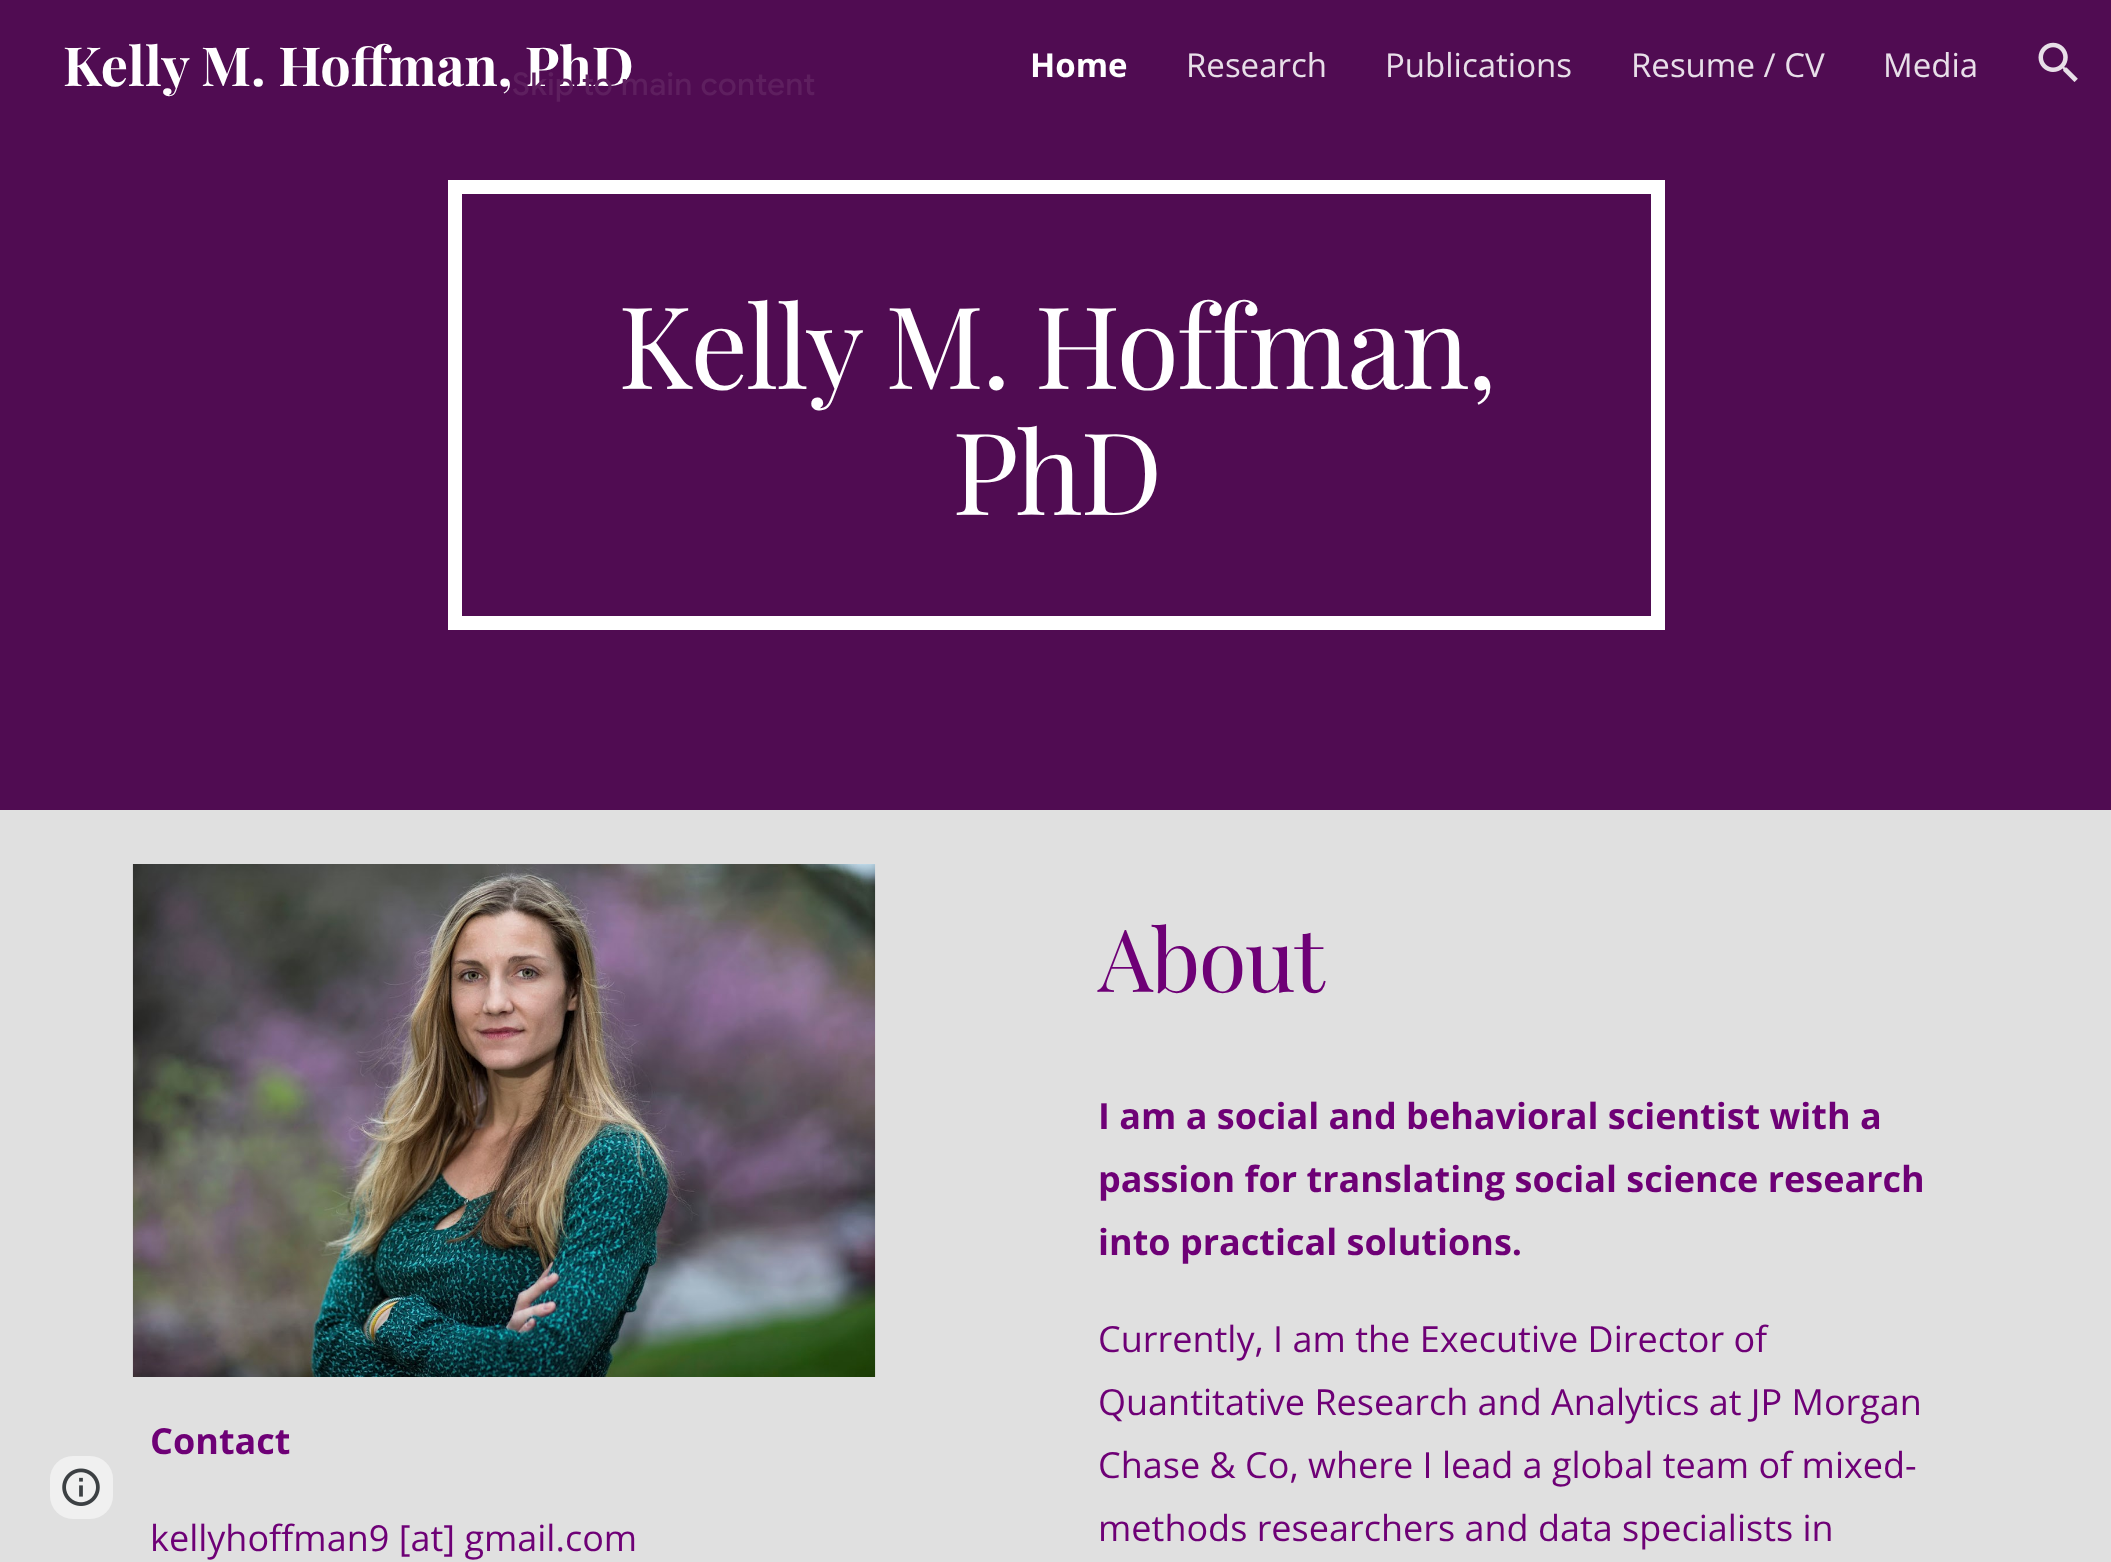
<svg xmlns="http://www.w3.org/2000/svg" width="2111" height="1562">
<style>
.a{font:bold 54px Playfair Display;fill:#fff}
.b{font:bold 33px Open Sans;fill:#fff}
.c{font:33px Open Sans;fill:#e8dfe9}
.d{font:114px Playfair Display;letter-spacing:-2.25px;fill:#fff}
.e{font:bold 36px Open Sans;fill:#6e0076}
.f{font:36px Open Sans;fill:#6e0076}
.g{font:87px Playfair Display;letter-spacing:-1.5px;fill:#6e0076}
.h{font:500 31.5px Google Sans;letter-spacing:0.3px;fill:#5e1f5f}
</style>
<rect width="100%" height="100%" fill="#500c52"/>
<image href="1.png" x="2038" y="42" width="40" height="40"/>
<path fill="#e0e0e0" d="M0 810h2111v752H0z"/>
<rect fill="#f0f0f0" x="50" y="1456" width="63" height="63" rx="23"/>
<image href="2.png" x="62" y="1468" width="38" height="38"/>
<path fill="none" stroke="#fff" stroke-width="14" d="M455 187h1203v436H455z"/>
<image href="3.png" x="132" y="864" width="744" height="513"/>
<text class="a" x="63" y="86">Kelly M. Hoffman, PhD</text>
<text class="b" x="1030" y="77">Home</text>
<text class="c" x="1186" y="77">Research</text>
<text class="c" x="1385" y="77">Publications</text>
<text class="c" x="1631" y="77">Resume / CV</text>
<text class="c" x="1883" y="77">Media</text>
<text class="d" x="618" y="389">Kelly M. Hoffman,</text>
<text class="d" x="952" y="515">PhD</text>
<text class="e" x="150" y="1454">Contact</text>
<text class="f" x="150" y="1551">kellyhoffman9 [at] gmail.com</text>
<text class="g" x="1098" y="992">About</text>
<text class="e" x="1098" y="1129">I am a social and behavioral scientist with a</text>
<text class="e" x="1098" y="1192">passion for translating social science research</text>
<text class="e" x="1098" y="1255">into practical solutions.</text>
<text class="f" x="1098" y="1352">Currently, I am the Executive Director of</text>
<text class="f" x="1098" y="1415">Quantitative Research and Analytics at JP Morgan</text>
<text class="f" x="1098" y="1478">Chase &amp; Co, where I lead a global team of mixed-</text>
<text class="f" x="1098" y="1541">methods researchers and data specialists in</text>
<text class="h" x="512" y="95">Skip to main content</text>
</svg>
